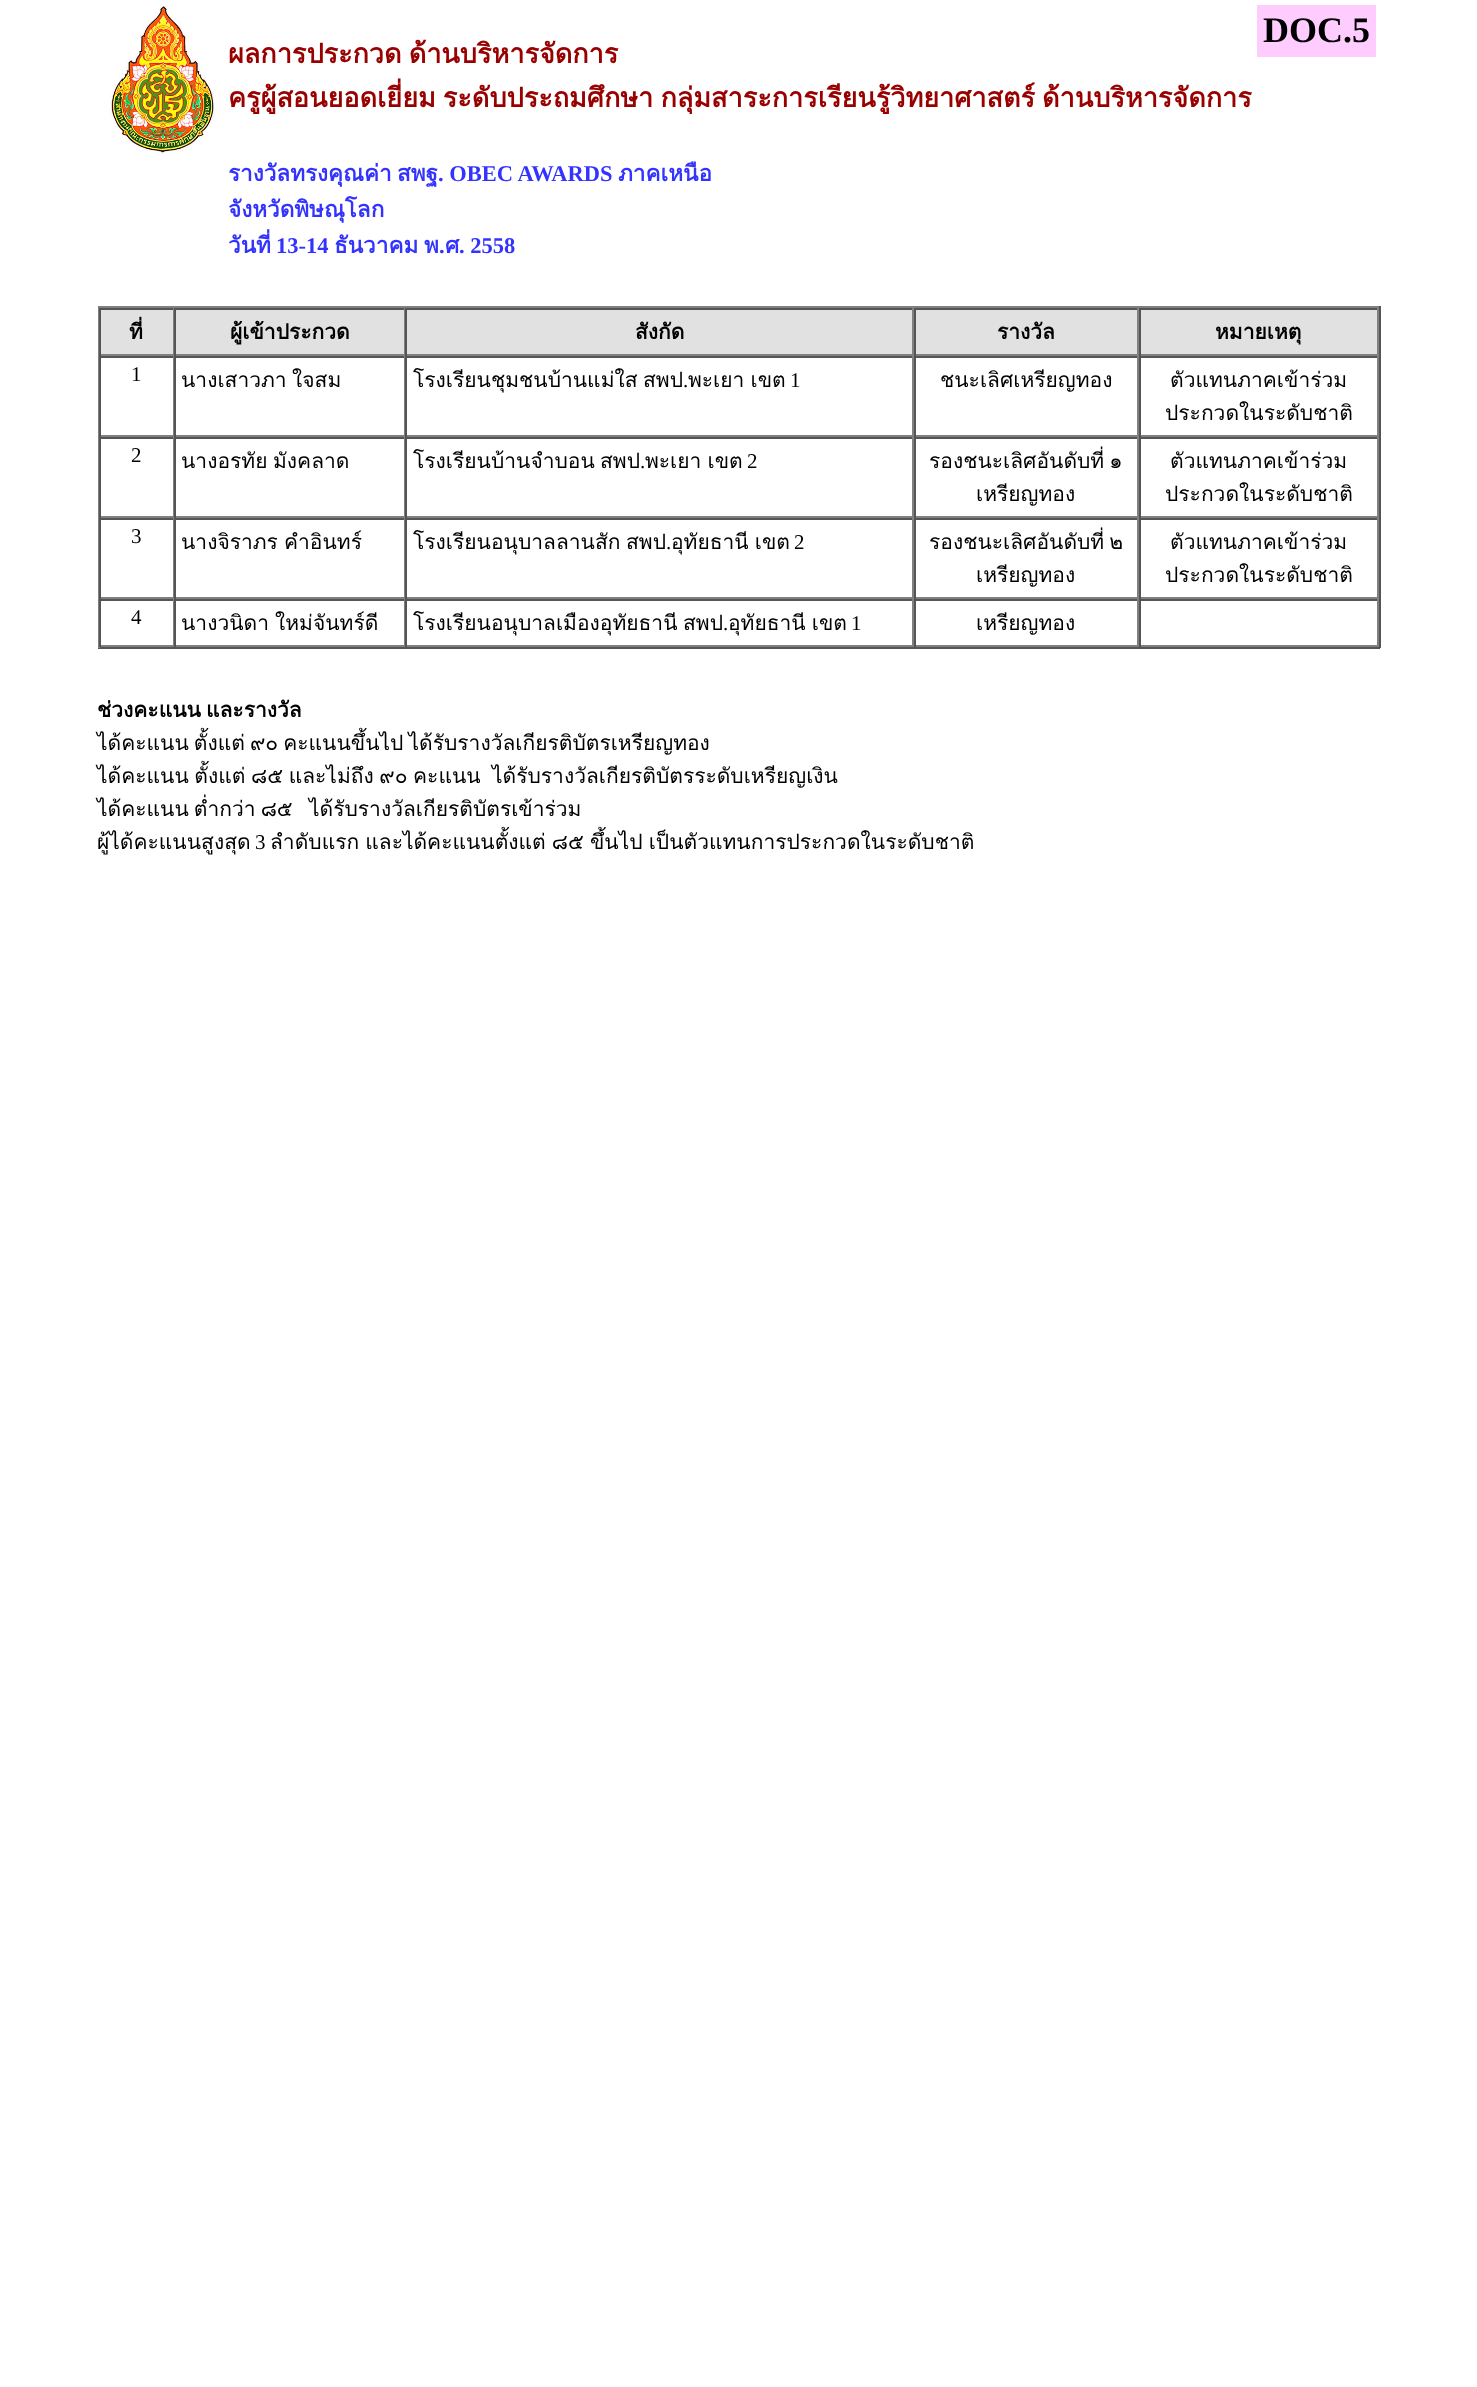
<svg xmlns="http://www.w3.org/2000/svg" width="1477" height="2387">
<style>
.a{font:bold 36px Liberation Serif;fill:#000}
.b{font:bold 27px Loma;fill:#900}
.c{font:bold 22.5px Loma;fill:#33f}
.d{font:bold 22.5px Liberation Serif;fill:#33f}
.e{font:bold 21px Loma;fill:#000}
.f{font:21px Liberation Serif;fill:#000}
.g{font:21px Loma;fill:#000}
</style>
<rect width="100%" height="100%" fill="#fff"/>
<image href="1.png" x="109" y="4" width="106" height="150"/>
<path fill="#fcf" d="M1257 5h119v52H1257z"/>
<path fill="#808080" d="M98 306h1282v2H98z"/>
<path fill="#555" d="M1379 306h2v342H1379z"/>
<path fill="#555" d="M98 647h1282v2H98z"/>
<path fill="#808080" d="M98 306h2v342H98z"/>
<path fill="#e1e1e1" d="M101 310h72v44H101z"/>
<path fill="#555" d="M99 308h1280v2H99z"/>
<path fill="#808080" d="M173 308h1v48H173z"/>
<path fill="#808080" d="M99 354h75v2H99z"/>
<path fill="#555" d="M99 308h2v48H99z"/>
<path fill="#e1e1e1" d="M176 310h228v44H176z"/>
<path fill="#808080" d="M404 308h1v48H404z"/>
<path fill="#808080" d="M174 354h231v2H174z"/>
<path fill="#555" d="M174 308h2v48H174z"/>
<path fill="#e1e1e1" d="M407 310h505v44H407z"/>
<path fill="#808080" d="M912 308h2v48H912z"/>
<path fill="#808080" d="M405 354h509v2H405z"/>
<path fill="#555" d="M405 308h2v48H405z"/>
<path fill="#e1e1e1" d="M916 310h221v44H916z"/>
<path fill="#808080" d="M1137 308h2v48H1137z"/>
<path fill="#808080" d="M914 354h225v2H914z"/>
<path fill="#555" d="M914 308h2v48H914z"/>
<path fill="#e1e1e1" d="M1141 310h236v44H1141z"/>
<path fill="#808080" d="M1377 308h2v48H1377z"/>
<path fill="#808080" d="M1139 354h240v2H1139z"/>
<path fill="#555" d="M1139 308h2v48H1139z"/>
<path fill="#555" d="M99 356h1280v2H99z"/>
<path fill="#808080" d="M173 356h1v81H173z"/>
<path fill="#808080" d="M99 435h75v2H99z"/>
<path fill="#555" d="M99 356h2v81H99z"/>
<path fill="#808080" d="M404 356h1v81H404z"/>
<path fill="#808080" d="M174 435h231v2H174z"/>
<path fill="#555" d="M174 356h2v81H174z"/>
<path fill="#808080" d="M912 356h2v81H912z"/>
<path fill="#808080" d="M405 435h509v2H405z"/>
<path fill="#555" d="M405 356h2v81H405z"/>
<path fill="#808080" d="M1137 356h2v81H1137z"/>
<path fill="#808080" d="M914 435h225v2H914z"/>
<path fill="#555" d="M914 356h2v81H914z"/>
<path fill="#808080" d="M1377 356h2v81H1377z"/>
<path fill="#808080" d="M1139 435h240v2H1139z"/>
<path fill="#555" d="M1139 356h2v81H1139z"/>
<path fill="#555" d="M99 437h1280v2H99z"/>
<path fill="#808080" d="M173 437h1v81H173z"/>
<path fill="#808080" d="M99 516h75v2H99z"/>
<path fill="#555" d="M99 437h2v81H99z"/>
<path fill="#808080" d="M404 437h1v81H404z"/>
<path fill="#808080" d="M174 516h231v2H174z"/>
<path fill="#555" d="M174 437h2v81H174z"/>
<path fill="#808080" d="M912 437h2v81H912z"/>
<path fill="#808080" d="M405 516h509v2H405z"/>
<path fill="#555" d="M405 437h2v81H405z"/>
<path fill="#808080" d="M1137 437h2v81H1137z"/>
<path fill="#808080" d="M914 516h225v2H914z"/>
<path fill="#555" d="M914 437h2v81H914z"/>
<path fill="#808080" d="M1377 437h2v81H1377z"/>
<path fill="#808080" d="M1139 516h240v2H1139z"/>
<path fill="#555" d="M1139 437h2v81H1139z"/>
<path fill="#555" d="M99 518h1280v2H99z"/>
<path fill="#808080" d="M173 518h1v81H173z"/>
<path fill="#808080" d="M99 597h75v2H99z"/>
<path fill="#555" d="M99 518h2v81H99z"/>
<path fill="#808080" d="M404 518h1v81H404z"/>
<path fill="#808080" d="M174 597h231v2H174z"/>
<path fill="#555" d="M174 518h2v81H174z"/>
<path fill="#808080" d="M912 518h2v81H912z"/>
<path fill="#808080" d="M405 597h509v2H405z"/>
<path fill="#555" d="M405 518h2v81H405z"/>
<path fill="#808080" d="M1137 518h2v81H1137z"/>
<path fill="#808080" d="M914 597h225v2H914z"/>
<path fill="#555" d="M914 518h2v81H914z"/>
<path fill="#808080" d="M1377 518h2v81H1377z"/>
<path fill="#808080" d="M1139 597h240v2H1139z"/>
<path fill="#555" d="M1139 518h2v81H1139z"/>
<path fill="#555" d="M99 599h1280v2H99z"/>
<path fill="#808080" d="M173 599h1v48H173z"/>
<path fill="#808080" d="M99 645h75v2H99z"/>
<path fill="#555" d="M99 599h2v48H99z"/>
<path fill="#808080" d="M404 599h1v48H404z"/>
<path fill="#808080" d="M174 645h231v2H174z"/>
<path fill="#555" d="M174 599h2v48H174z"/>
<path fill="#808080" d="M912 599h2v48H912z"/>
<path fill="#808080" d="M405 645h509v2H405z"/>
<path fill="#555" d="M405 599h2v48H405z"/>
<path fill="#808080" d="M1137 599h2v48H1137z"/>
<path fill="#808080" d="M914 645h225v2H914z"/>
<path fill="#555" d="M914 599h2v48H914z"/>
<path fill="#808080" d="M1377 599h2v48H1377z"/>
<path fill="#808080" d="M1139 645h240v2H1139z"/>
<path fill="#555" d="M1139 599h2v48H1139z"/>
<text class="a" x="1263" y="42">DOC.5</text>
<text class="b" x="228" y="63" word-spacing="-2">ผลการประกวด ด้านบริหารจัดการ</text>
<text class="b" x="228" y="107" word-spacing="-2">ครูผู้สอนยอดเยี่ยม ระดับประถมศึกษา กลุ่มสาระการเรียนรู้วิทยาศาสตร์ ด้านบริหารจัดการ</text>
<text class="c" x="228" y="181">รางวัลทรงคุณค่า</text>
<text class="c" x="397" y="181">สพฐ</text>
<text class="d" x="438" y="181">. OBEC AWARDS</text>
<text class="c" x="618" y="181">ภาคเหนือ</text>
<text class="c" x="228" y="217">จังหวัดพิษณุโลก</text>
<text class="c" x="228" y="253">วันที่</text>
<text class="d" x="276" y="253">13-14</text>
<text class="c" x="334" y="253">ธันวาคม</text>
<text class="c" x="424" y="253">พ</text>
<text class="d" x="439" y="253">.</text>
<text class="c" x="445" y="253">ศ</text>
<text class="d" x="459" y="253">. 2558</text>
<text class="e" x="129" y="339">ที่</text>
<text class="e" x="230" y="339">ผู้เข้าประกวด</text>
<text class="e" x="635" y="339">สังกัด</text>
<text class="e" x="997" y="339">รางวัล</text>
<text class="e" x="1215" y="339">หมายเหตุ</text>
<text class="f" x="131" y="381">1</text>
<text class="g" x="181" y="387">นางเสาวภา</text>
<text class="g" x="292" y="387">ใจสม</text>
<text class="g" x="413" y="387">โรงเรียนชุมชนบ้านแม่ใส</text>
<text class="g" x="643" y="387">สพป</text>
<text class="f" x="683" y="387">.</text>
<text class="g" x="688" y="387" word-spacing="-1">พะเยา เขต</text>
<text class="f" x="790" y="387">1</text>
<text class="g" x="940" y="387">ชนะเลิศเหรียญทอง</text>
<text class="g" x="1170" y="387">ตัวแทนภาคเข้าร่วม</text>
<text class="g" x="1165" y="420">ประกวดในระดับชาติ</text>
<text class="f" x="131" y="462">2</text>
<text class="g" x="181" y="468">นางอรทัย</text>
<text class="g" x="273" y="468">มังคลาด</text>
<text class="g" x="413" y="468">โรงเรียนบ้านจำบอน</text>
<text class="g" x="600" y="468">สพป</text>
<text class="f" x="640" y="468">.</text>
<text class="g" x="645" y="468" word-spacing="-1">พะเยา เขต</text>
<text class="f" x="747" y="468">2</text>
<text class="g" x="929" y="468" word-spacing="-2">รองชนะเลิศอันดับที่ ๑</text>
<text class="g" x="976" y="501">เหรียญทอง</text>
<text class="g" x="1170" y="468">ตัวแทนภาคเข้าร่วม</text>
<text class="g" x="1165" y="501">ประกวดในระดับชาติ</text>
<text class="f" x="131" y="543">3</text>
<text class="g" x="181" y="549">นางจิราภร</text>
<text class="g" x="284" y="549">คำอินทร์</text>
<text class="g" x="413" y="549">โรงเรียนอนุบาลลานสัก</text>
<text class="g" x="626" y="549">สพป</text>
<text class="f" x="794" y="549">2</text>
<text class="f" x="666" y="549">.</text>
<text class="g" x="671" y="549" word-spacing="-1">อุทัยธานี เขต</text>
<text class="g" x="929" y="549" word-spacing="-2">รองชนะเลิศอันดับที่ ๒</text>
<text class="g" x="976" y="582">เหรียญทอง</text>
<text class="g" x="1170" y="549">ตัวแทนภาคเข้าร่วม</text>
<text class="g" x="1165" y="582">ประกวดในระดับชาติ</text>
<text class="f" x="131" y="624">4</text>
<text class="g" x="181" y="630">นางวนิดา</text>
<text class="g" x="275" y="630">ใหม่จันทร์ดี</text>
<text class="g" x="413" y="630">โรงเรียนอนุบาลเมืองอุทัยธานี</text>
<text class="g" x="683" y="630">สพป</text>
<text class="f" x="851" y="630">1</text>
<text class="f" x="723" y="630">.</text>
<text class="g" x="728" y="630" word-spacing="-1">อุทัยธานี เขต</text>
<text class="g" x="976" y="630">เหรียญทอง</text>
<text class="e" x="97" y="717" word-spacing="-2">ช่วงคะแนน และรางวัล</text>
<text class="g" x="97" y="750" word-spacing="-2">ได้คะแนน ตั้งแต่ ๙๐ คะแนนขึ้นไป ได้รับรางวัลเกียรติบัตรเหรียญทอง</text>
<text class="g" x="97" y="783" word-spacing="-1.5">ได้คะแนน ตั้งแต่ ๘๕ และไม่ถึง ๙๐ คะแนน</text>
<text class="g" x="492" y="783">ได้รับรางวัลเกียรติบัตรระดับเหรียญเงิน</text>
<text class="g" x="97" y="816" word-spacing="-2">ได้คะแนน ต่ำกว่า ๘๕</text>
<text class="g" x="309" y="816">ได้รับรางวัลเกียรติบัตรเข้าร่วม</text>
<text class="g" x="97" y="849">ผู้ได้คะแนนสูงสุด</text>
<text class="f" x="255" y="849">3</text>
<text class="g" x="270" y="849" word-spacing="-1">ลำดับแรก และได้คะแนนตั้งแต่ ๘๕ ขึ้นไป เป็นตัวแทนการประกวดในระดับชาติ</text>
</svg>
